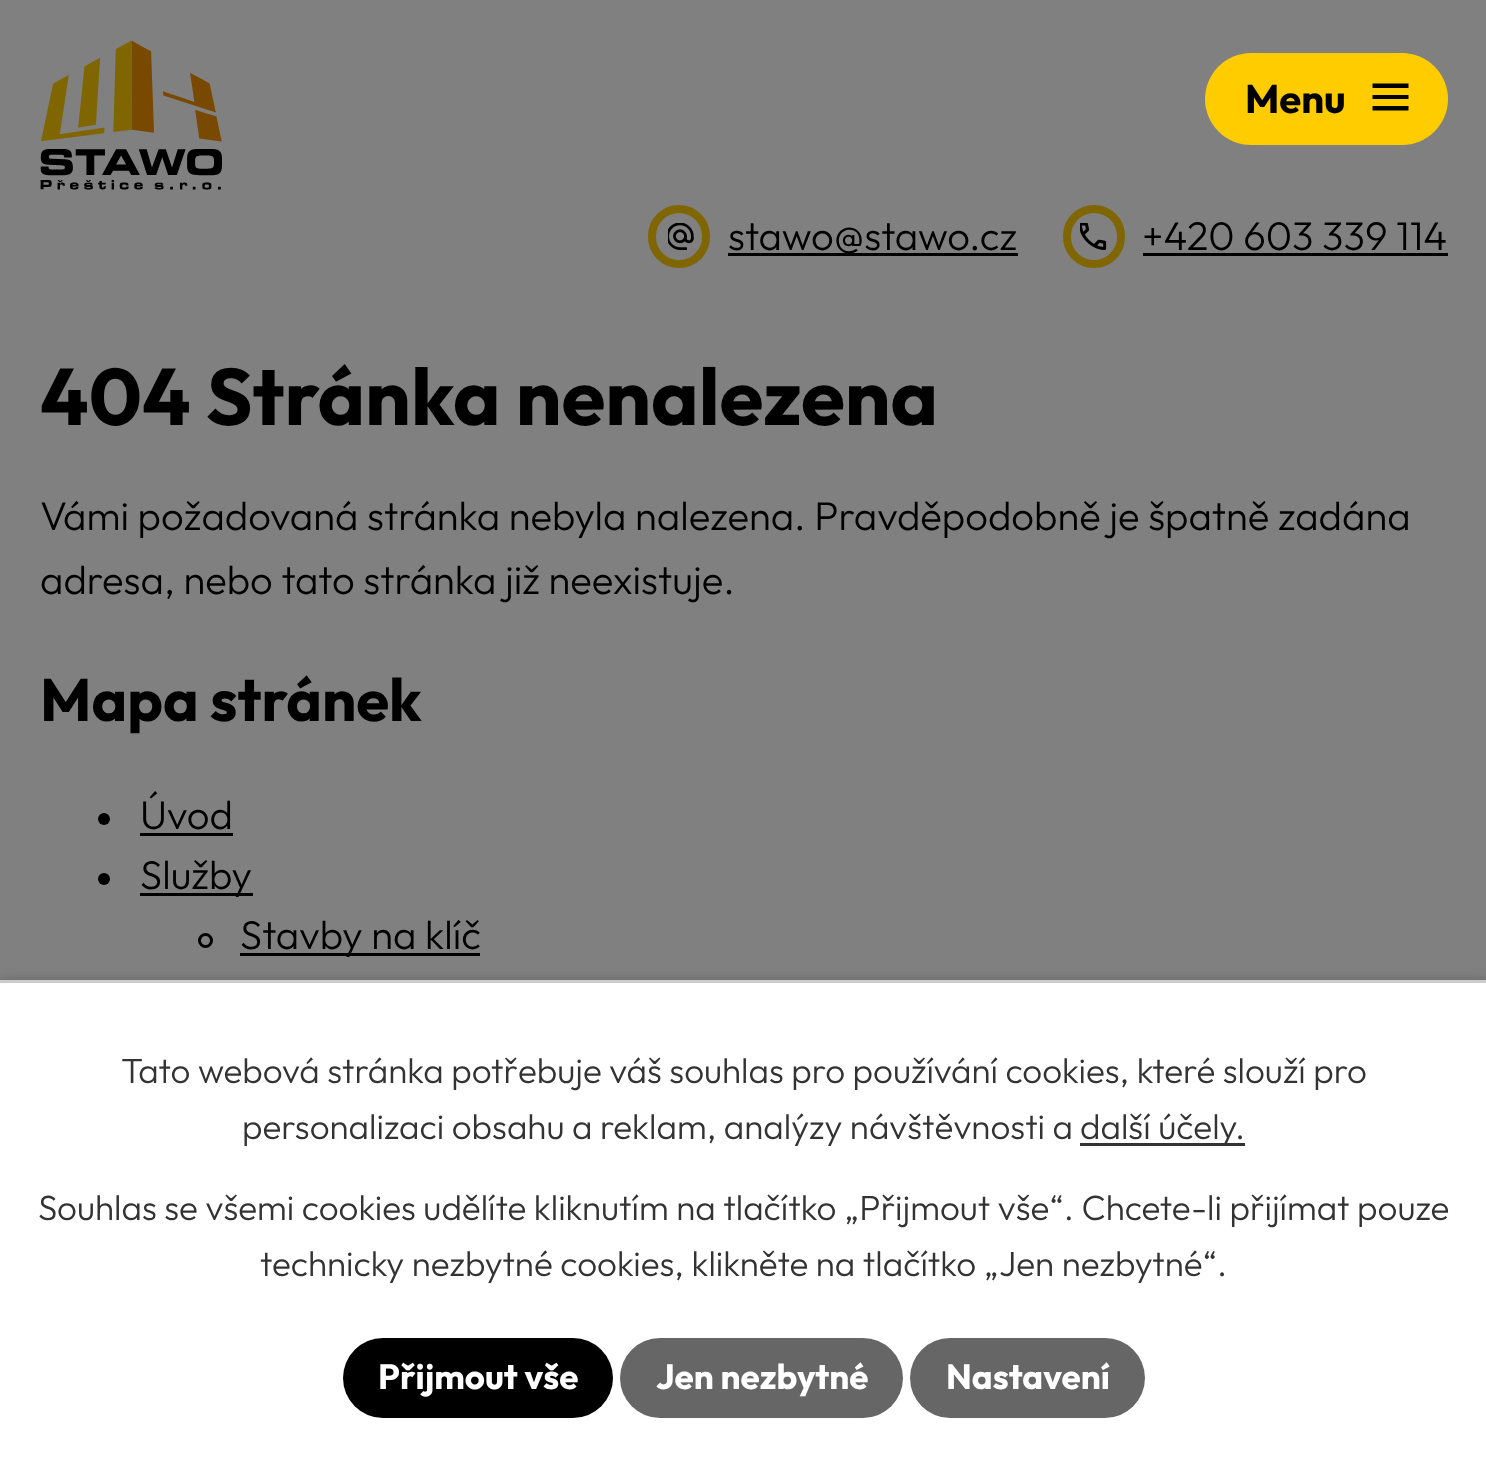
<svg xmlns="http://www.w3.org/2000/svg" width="1486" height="1471">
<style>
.a{font:bold 40px Outfit;fill:#000}
.b{font:300 40px Outfit;fill:#000}
.c{font:bold 80px Outfit;fill:#000}
.d{font:bold 60px Outfit;fill:#000}
.e{font:300 35px Outfit;fill:#333}
.f{font:bold 35px Outfit;fill:#fff}
</style>
<rect width="100%" height="100%" fill="#808080"/>
<rect fill="#fc0" x="1205" y="53" width="243" height="92" rx="46"/>
<path fill="#000" d="M1372.5 110.5v-4.5h36v4.5zm0-27h36v4.5h-36zm0 15.5v-4h36v4z"/>
<image href="1.png" x="40" y="40" width="182" height="150"/>
<rect fill="none" stroke="#806600" stroke-width="8" x="652" y="209" width="54" height="55" rx="27"/>
<image href="2.png" x="668" y="223" width="26" height="27"/>
<path fill="#000" d="M728 253h290v3H728z"/>
<rect fill="none" stroke="#806600" stroke-width="8" x="1067" y="209" width="54" height="55" rx="27"/>
<image href="3.png" x="1080" y="223" width="27" height="27"/>
<path fill="#000" d="M1143 253h305v3H1143z"/>
<circle fill="#000" cx="104" cy="819" r="6"/>
<path fill="#000" d="M140 833h93v3H140z"/>
<circle fill="#000" cx="104" cy="879" r="6"/>
<path fill="#000" d="M140 893h113v3H140z"/>
<circle fill="none" stroke="#000" stroke-width="3" cx="205.5" cy="940.5" r="6"/>
<path fill="#000" d="M240 953h240v3H240z"/>
<path fill="#00000033" filter="blur(6px)" d="M0 980h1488v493H0z"/>
<path fill="#fff" d="M0 983h1486v488H0z"/>
<path fill="#ccc" d="M0 980h1486v3H0z"/>
<path fill="#333" d="M1080 1143h165v3H1080z"/>
<rect fill="#000" x="343" y="1338" width="270" height="80" rx="40"/>
<rect fill="#666" x="620" y="1338" width="283" height="80" rx="40"/>
<rect fill="#666" x="910" y="1338" width="235" height="80" rx="40"/>
<text class="a" x="1245" y="113">Menu</text>
<text class="b" x="728" y="250">stawo@stawo.cz</text>
<text class="b" x="1142" y="250">+420 603 339 114</text>
<text class="c" x="40" y="425">404 Stránka nenalezena</text>
<text class="b" x="40" y="530">Vámi požadovaná stránka nebyla nalezena. Pravděpodobně je špatně zadána</text>
<text class="b" x="40" y="594">adresa, nebo tato stránka již neexistuje.</text>
<text class="d" x="40" y="721">Mapa stránek</text>
<text class="b" x="140" y="829">Úvod</text>
<text class="b" x="140" y="889">Služby</text>
<text class="b" x="240" y="949">Stavby na klíč</text>
<text class="e" x="121" y="1083">Tato webová stránka potřebuje váš souhlas pro používání cookies, které slouží pro</text>
<text class="e" x="242" y="1139">personalizaci obsahu a reklam, analýzy návštěvnosti a</text>
<text class="e" x="1080" y="1139">další účely.</text>
<text class="e" x="38" y="1220">Souhlas se všemi cookies udělíte kliknutím na tlačítko „Přijmout vše“. Chcete-li přijímat pouze</text>
<text class="e" x="260" y="1276">technicky nezbytné cookies, klikněte na tlačítko „Jen nezbytné“.</text>
<text class="f" x="378" y="1389">Přijmout vše</text>
<text class="f" x="656" y="1389">Jen nezbytné</text>
<text class="f" x="946" y="1389">Nastavení</text>
</svg>
